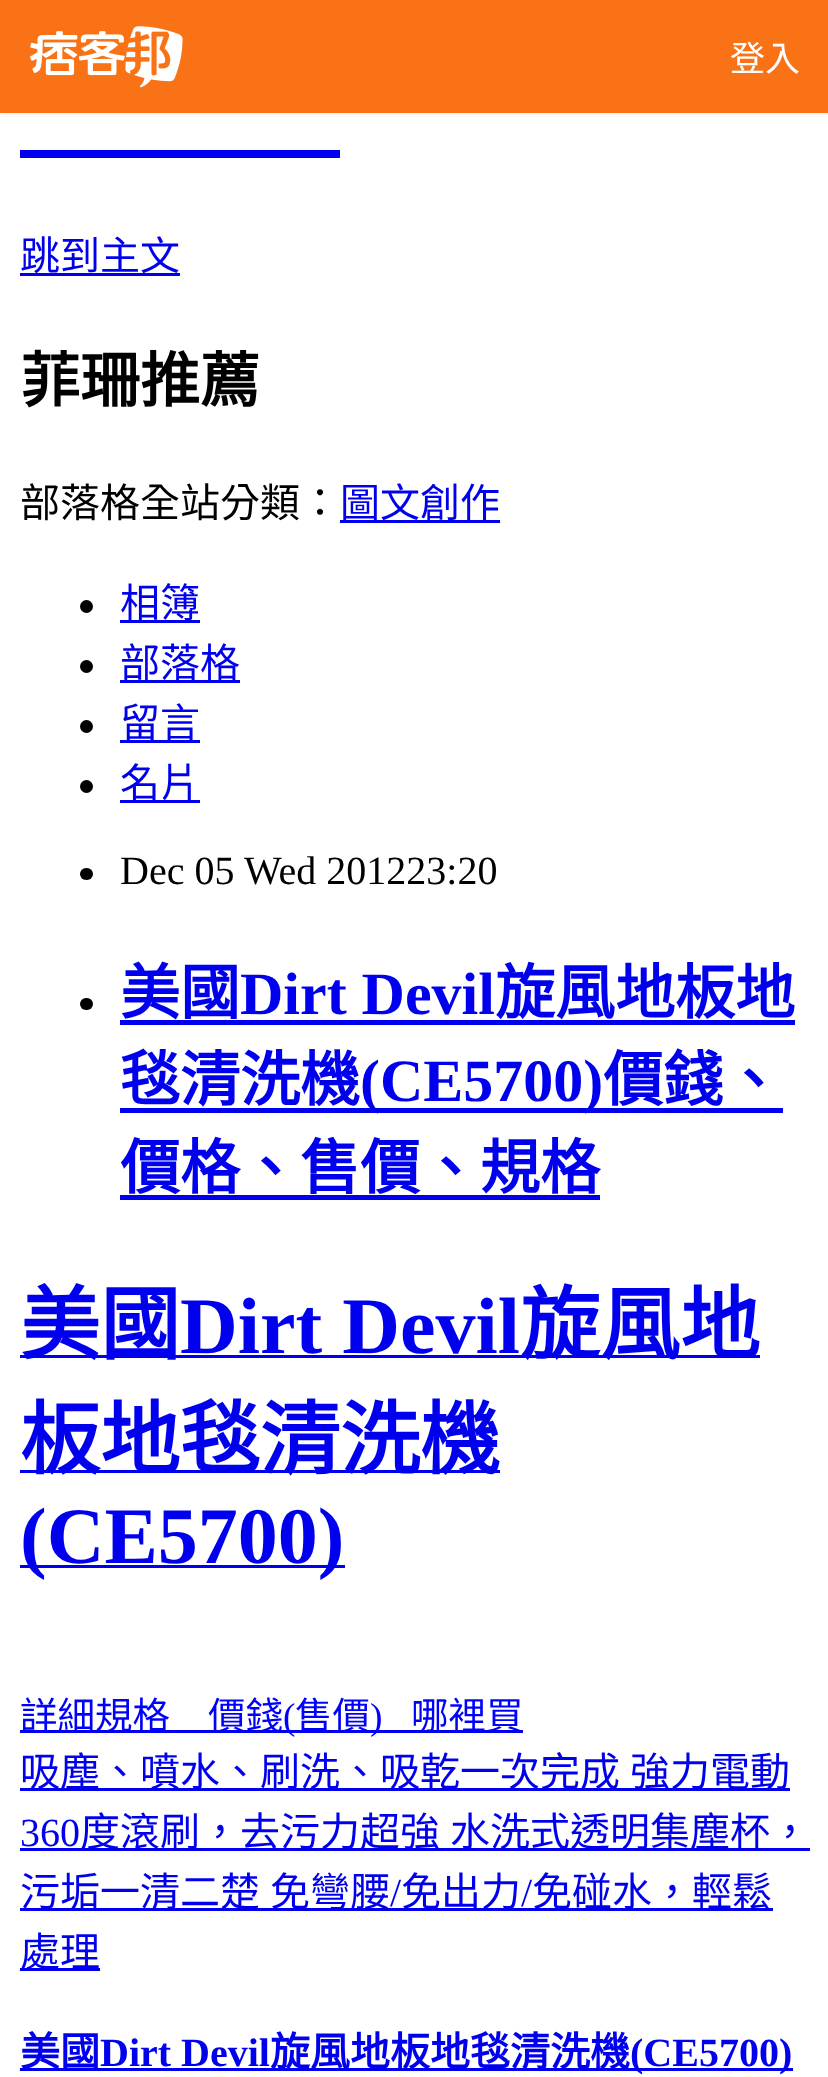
<svg xmlns="http://www.w3.org/2000/svg" width="828" height="2077">
<style>
.a{font:35px Noto Sans CJK TC;fill:#fff}
.b{font:40px Noto Sans CJK TC;fill:#00e}
.c{font:bold 60px Noto Sans CJK TC;fill:#000}
.d{font:40px Noto Sans CJK TC;fill:#000}
.e{font:40px Liberation Serif;fill:#000}
.f{font:bold 60px Noto Sans CJK TC;fill:#00e}
.g{font:bold 60px Liberation Serif;fill:#00e}
.h{font:bold 80px Noto Sans CJK TC;fill:#00e}
.i{font:bold 80px Liberation Serif;fill:#00e}
.j{font:37.5px Noto Sans CJK TC;fill:#00f}
.k{font:37.5px Liberation Serif;fill:#00f}
.l{font:40px Liberation Serif;fill:#00e}
.m{font:bold 40px Noto Sans CJK TC;fill:#00e}
.n{font:bold 40px Liberation Serif;fill:#00e}
</style>
<rect width="100%" height="100%" fill="#fff"/>
<path fill="#0000000d" filter="blur(2.5px)" d="M0 3h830v112H0z"/>
<path fill="#f97316" d="M0 0h828v113H0z"/>
<image href="1.png" x="30" y="26" width="153" height="62"/>
<path fill="#00e" d="M20 150h320v8H20z"/>
<path fill="#00e" d="M20 273h160v3H20z"/>
<path fill="#00e" d="M340 520h160v3H340z"/>
<circle fill="#000" cx="86.5" cy="606.5" r="6.5"/>
<path fill="#00e" d="M120 620h80v3H120z"/>
<circle fill="#000" cx="86.5" cy="666.5" r="6.5"/>
<path fill="#00e" d="M120 680h120v3H120z"/>
<circle fill="#000" cx="86.5" cy="726.5" r="6.5"/>
<path fill="#00e" d="M120 740h80v3H120z"/>
<circle fill="#000" cx="86.5" cy="786.5" r="6.5"/>
<path fill="#00e" d="M120 800h80v3H120z"/>
<rect fill="#000" x="80" y="868" width="13" height="12" rx="6"/>
<rect fill="#000" x="80" y="998" width="13" height="12" rx="6"/>
<path fill="#00e" d="M120 1020h675v5H120z"/>
<path fill="#00e" d="M120 1108h663v5H120z"/>
<path fill="#00e" d="M120 1195h480v5H120z"/>
<path fill="#00e" d="M20 1355h740v3H20z"/>
<path fill="#00e" d="M20 1470h480v3H20z"/>
<path fill="#00e" d="M20 1565h325v3H20z"/>
<path fill="#00e" d="M20 1730h503v3H20z"/>
<path fill="#00e" d="M20 1788h770v3H20z"/>
<path fill="#00e" d="M20 1848h790v3H20z"/>
<path fill="#00e" d="M20 1908h753v3H20z"/>
<path fill="#00e" d="M20 1968h80v3H20z"/>
<path fill="#00e" d="M20 2068h773v3H20z"/>
<text class="a" x="730" y="71">登入</text>
<text class="b" x="20" y="270">跳到主文</text>
<text class="c" x="20" y="402">菲珊推薦</text>
<text class="d" x="20" y="517">部落格全站分類：</text>
<text class="b" x="340" y="517">圖文創作</text>
<text class="b" x="120" y="617">相簿</text>
<text class="b" x="120" y="677">部落格</text>
<text class="b" x="120" y="737">留言</text>
<text class="b" x="120" y="797">名片</text>
<text class="e" x="120" y="884">Dec 05</text>
<text class="e" x="244" y="884">Wed 201223:20</text>
<text class="f" x="120" y="1014">美國</text>
<text class="g" x="240" y="1014">Dirt Devil</text>
<text class="f" x="495" y="1014">旋風地板地</text>
<text class="f" x="120" y="1101">毯清洗機</text>
<text class="g" x="360" y="1101">(CE5700)</text>
<text class="f" x="603" y="1101">價錢、</text>
<text class="f" x="120" y="1189">價格、售價、規格</text>
<text class="h" x="20" y="1353">美國</text>
<text class="i" x="180" y="1353">Dirt Devil</text>
<text class="h" x="520" y="1353">旋風地</text>
<text class="h" x="20" y="1468">板地毯清洗機</text>
<text class="i" x="20" y="1563">(CE5700)</text>
<text class="j" x="20" y="1729">詳細規格</text>
<text class="j" x="208" y="1729">價錢</text>
<text class="k" x="283" y="1729">(</text>
<text class="j" x="295" y="1729">售價</text>
<text class="k" x="370" y="1729">)</text>
<text class="j" x="411" y="1729">哪裡買</text>
<text class="b" x="20" y="1786" word-spacing="1">吸塵、噴水、刷洗、吸乾一次完成 強力電動</text>
<text class="l" x="20" y="1846">360</text>
<text class="b" x="80" y="1846" word-spacing="1">度滾刷，去污力超強 水洗式透明集塵杯，</text>
<text class="b" x="20" y="1906" word-spacing="1">污垢一清二楚 免彎腰</text>
<text class="l" x="390" y="1906">/</text>
<text class="b" x="401" y="1906">免出力</text>
<text class="l" x="521" y="1906">/</text>
<text class="b" x="532" y="1906">免碰水，輕鬆</text>
<text class="b" x="20" y="1966">處理</text>
<text class="m" x="20" y="2066">美國</text>
<text class="n" x="100" y="2066">Dirt Devil</text>
<text class="m" x="270" y="2066">旋風地板地毯清洗機</text>
<text class="n" x="630" y="2066">(CE5700)</text>
</svg>
